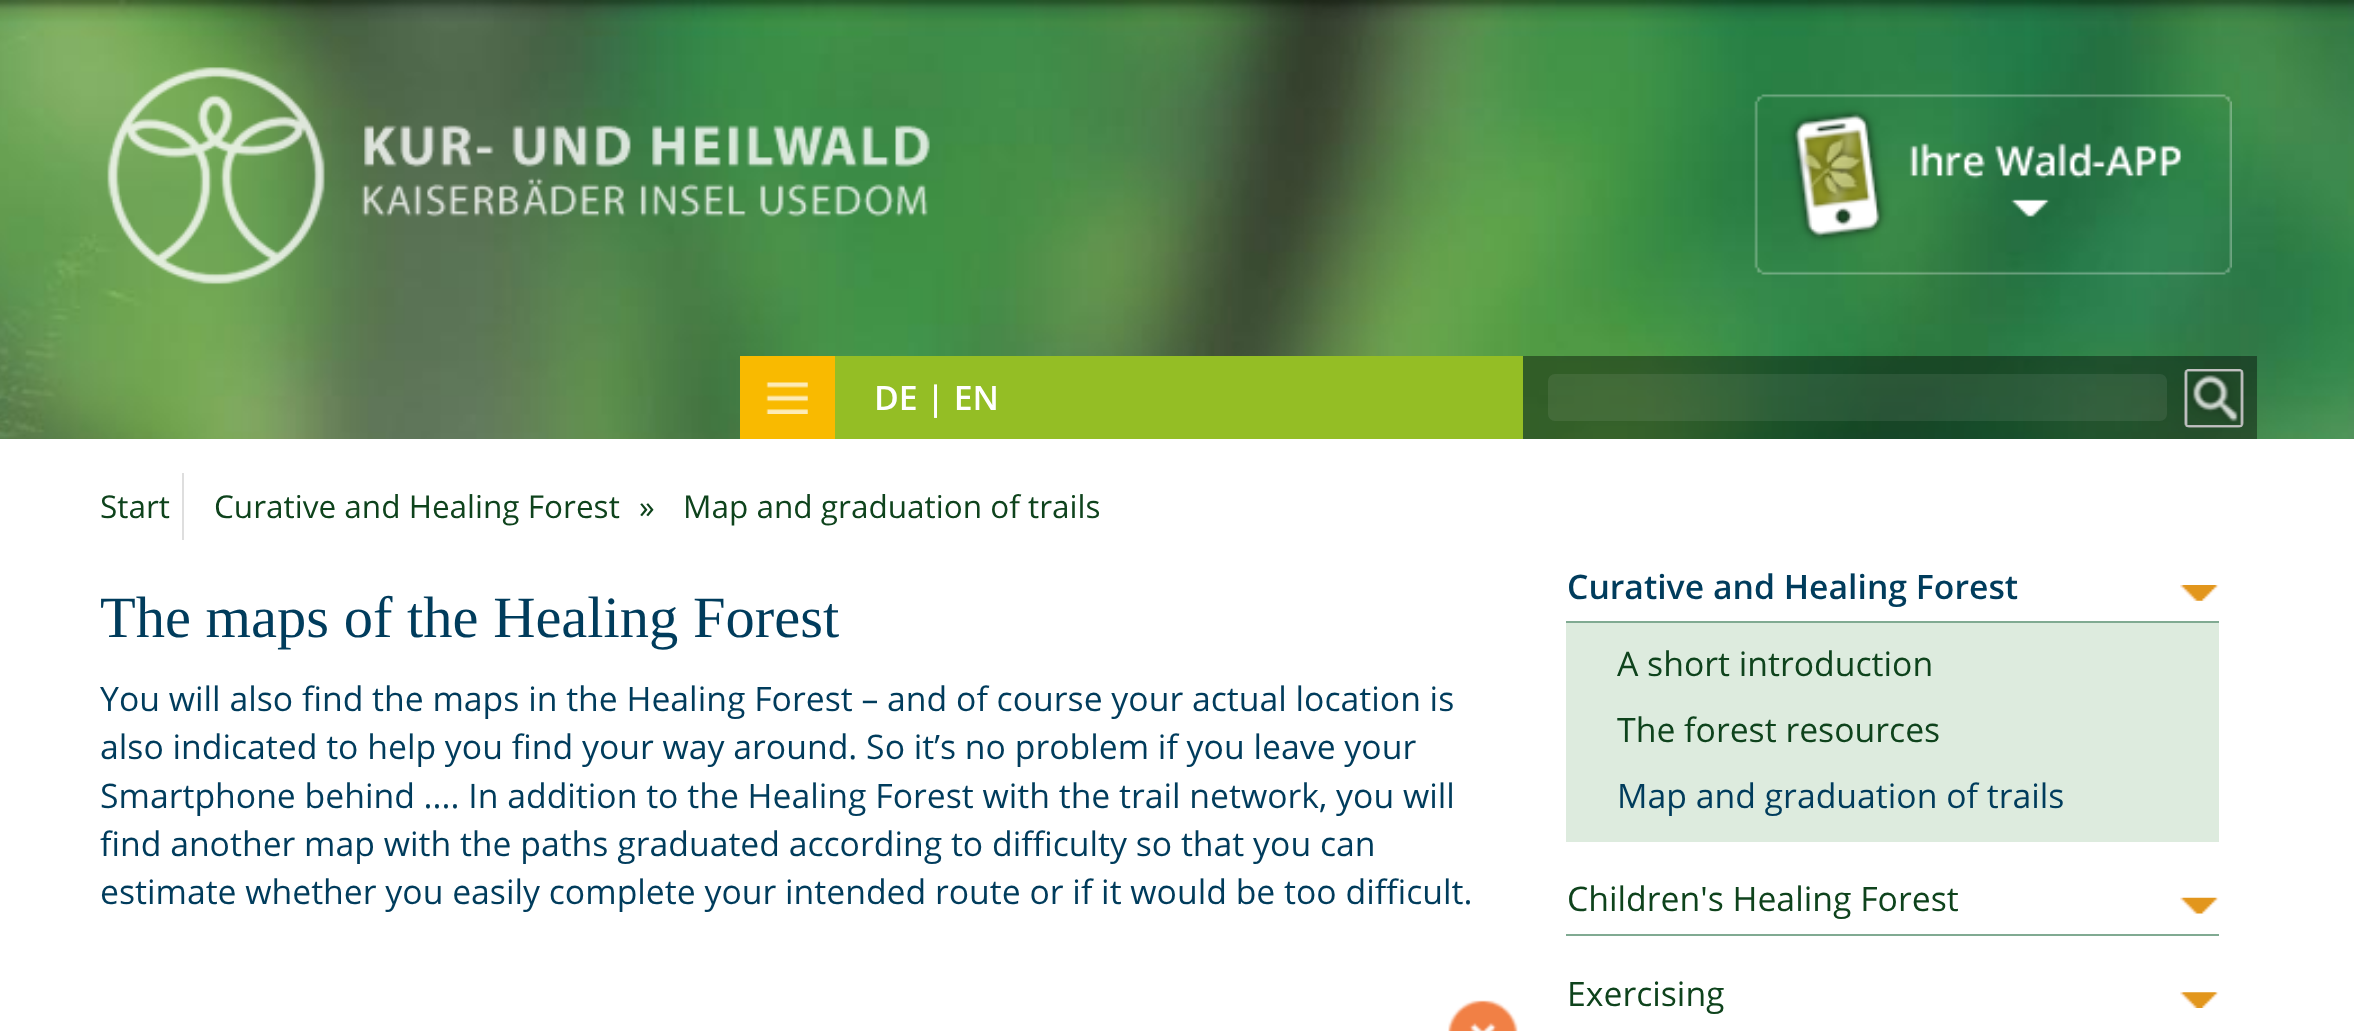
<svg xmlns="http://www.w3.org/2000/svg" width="2354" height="1031">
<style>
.a{font:600 33.75px Open Sans;fill:#fff}
.b{font:31.5px Open Sans;fill:#0e431c}
.c{font:58.5px Liberation Serif;fill:#003c5c}
.d{font:33.75px Open Sans;fill:#003c5c}
.e{font:600 33.75px Open Sans;fill:#003c5c}
.f{font:33.75px Open Sans;fill:#0e431c}
</style>
<rect width="100%" height="100%" fill="#fff"/>
<image href="1.png" x="0" y="0" width="2354" height="439"/>
<image href="2.png" x="107" y="67" width="823" height="218"/>
<image href="3.png" x="1754" y="94" width="478" height="181"/>
<path fill="#f9ba00" d="M740 356h95v83H740z"/>
<image href="4.png" x="766" y="382" width="42" height="32"/>
<path fill="#94be25" d="M835 356h688v83H835z"/>
<path fill="#00000066" d="M1523 356h734v83H1523z"/>
<rect fill="#ffffff14" x="1548" y="374" width="619" height="47" rx="7"/>
<image href="5.png" x="2184" y="369" width="60" height="59"/>
<image href="6.png" x="2184" y="369" width="60" height="59"/>
<path fill="#dedede" d="M182 473h2v67H182z"/>
<image href="7.png" x="1448" y="1000" width="70" height="31"/>
<path fill="#80aa92" d="M1566 621h653v2H1566z"/>
<image href="8.png" x="2180" y="585" width="39" height="16"/>
<path fill="#ddebde" d="M1566 623h653v219H1566z"/>
<path fill="#80aa92" d="M1566 934h653v2H1566z"/>
<image href="9.png" x="2180" y="897" width="39" height="17"/>
<image href="10.png" x="2180" y="992" width="39" height="16"/>
<text class="a" x="874" y="410">DE | EN</text>
<text class="b" x="100" y="518">Start</text>
<text class="b" x="214" y="518">Curative and Healing Forest</text>
<text class="b" x="639" y="518">»</text>
<text class="b" x="683" y="518">Map and graduation of trails</text>
<text class="c" x="100" y="637">The maps of the Healing Forest</text>
<text class="d" x="100" y="711">You will also find the maps in the Healing Forest – and of course your actual location is</text>
<text class="d" x="100" y="759">also indicated to help you find your way around. So it’s no problem if you leave your</text>
<text class="d" x="100" y="808">Smartphone behind .... In addition to the Healing Forest with the trail network, you will</text>
<text class="d" x="100" y="856">find another map with the paths graduated according to difficulty so that you can</text>
<text class="d" x="100" y="904">estimate whether you easily complete your intended route or if it would be too difficult.</text>
<text class="e" x="1567" y="599">Curative and Healing Forest</text>
<text class="f" x="1617" y="676">A short introduction</text>
<text class="f" x="1617" y="742">The forest resources</text>
<text class="d" x="1617" y="808">Map and graduation of trails</text>
<text class="f" x="1567" y="911">Children's Healing Forest</text>
<text class="f" x="1567" y="1006">Exercising</text>
</svg>
